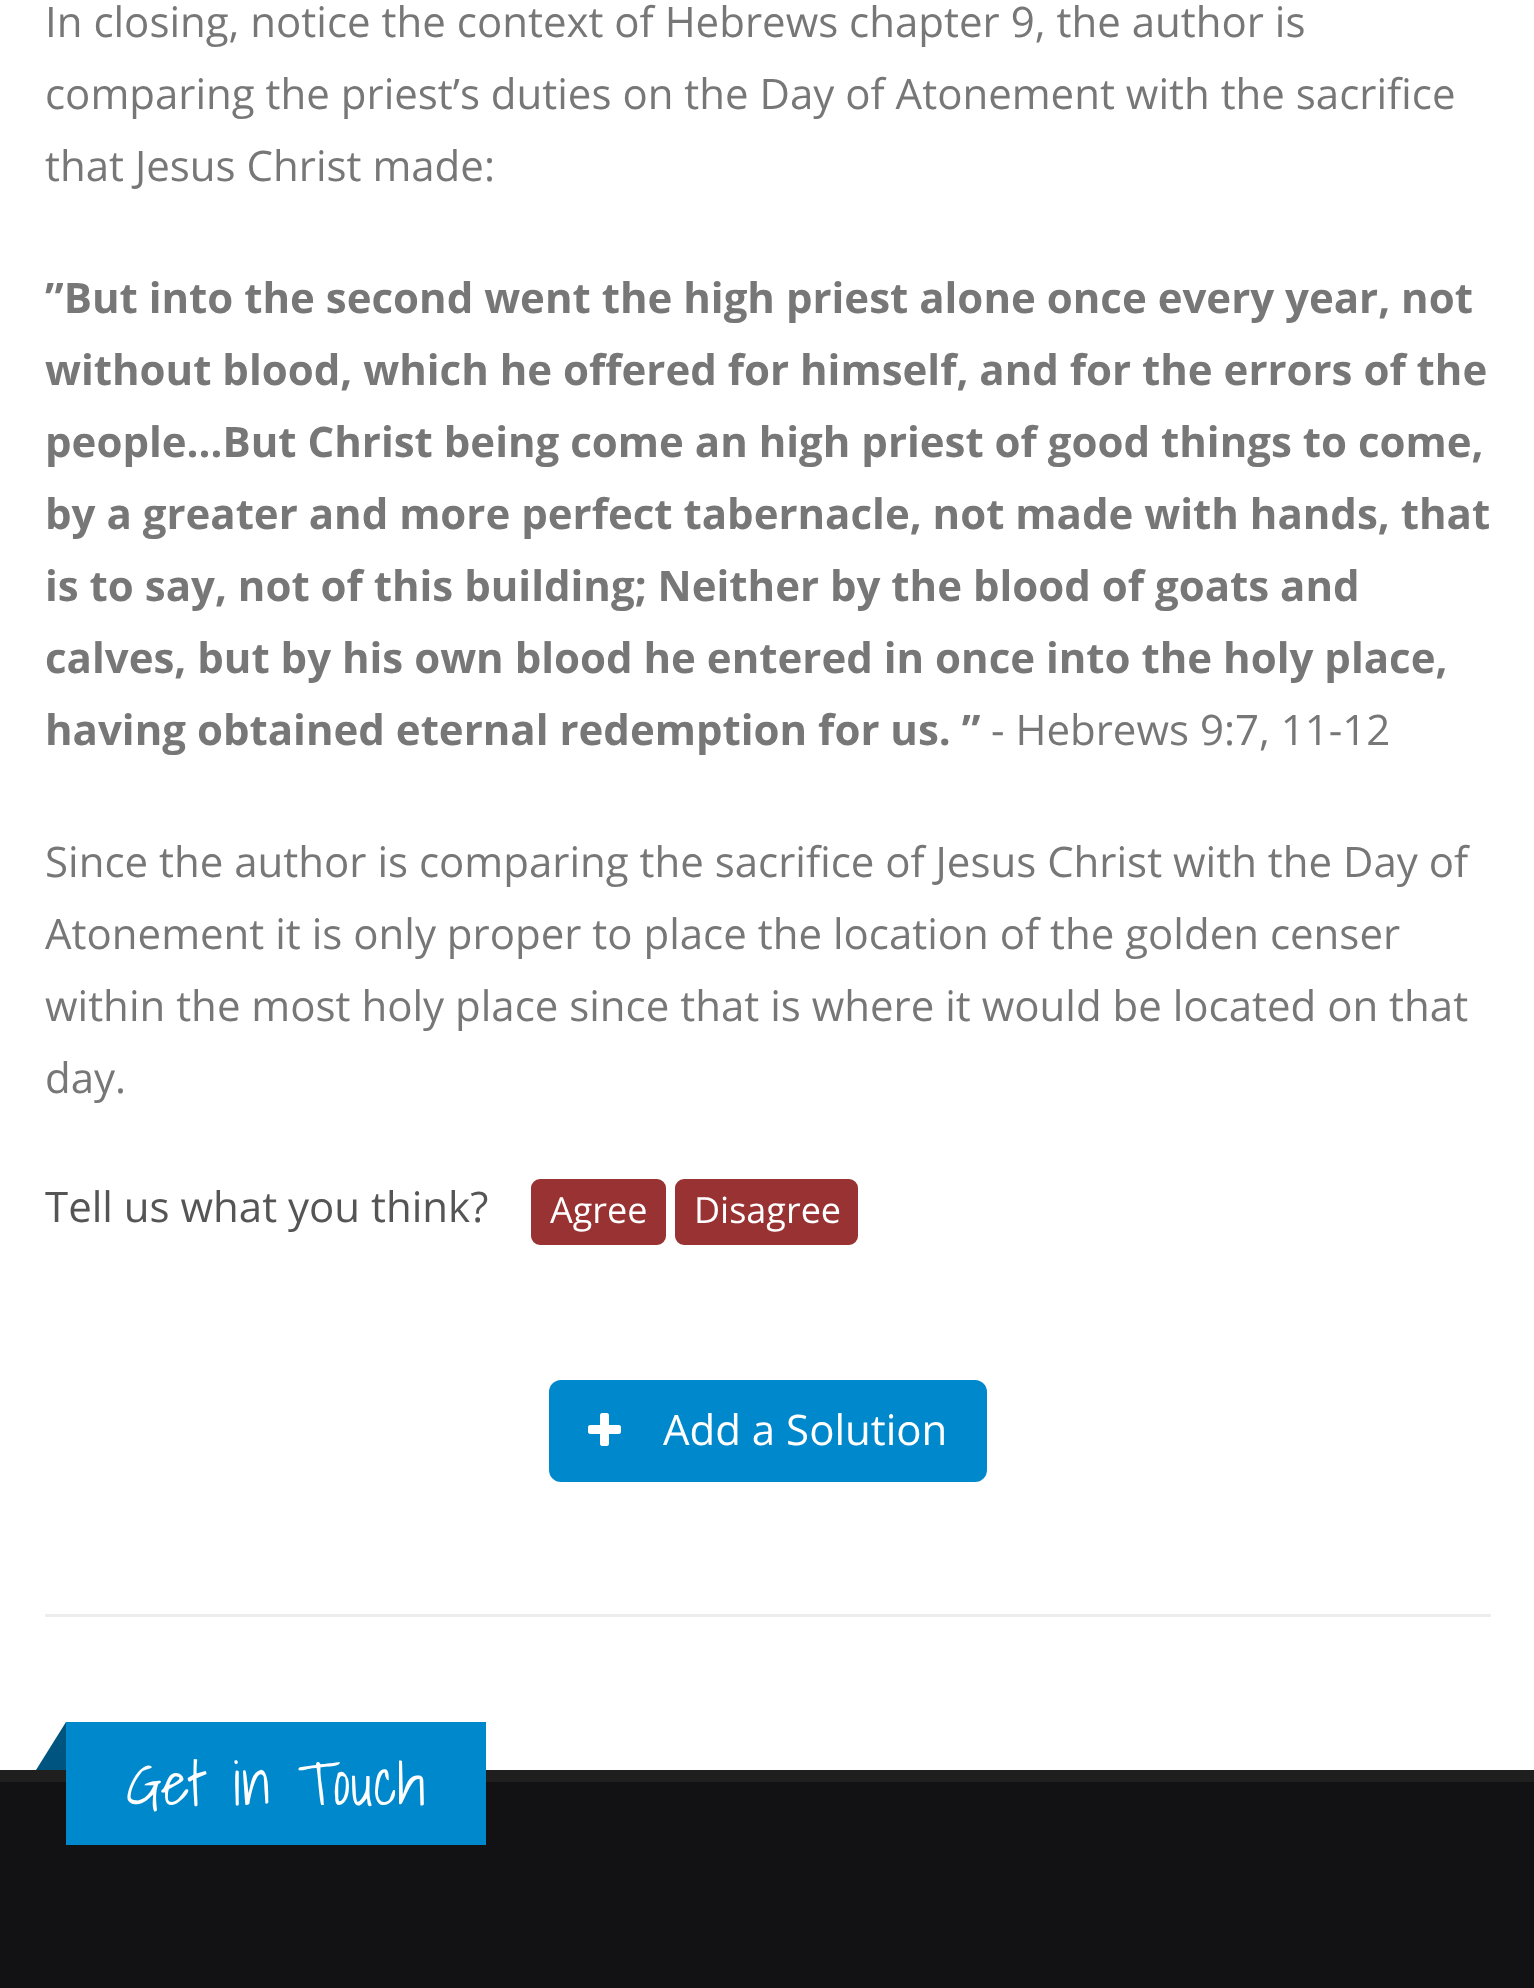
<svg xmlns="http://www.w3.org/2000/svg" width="1534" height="1988">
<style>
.a{font:42px Open Sans;fill:#777}
.b{font:bold 42px Open Sans;fill:#777}
.c{font:42px Open Sans;fill:#555}
.d{font:36px Open Sans;fill:#fff}
.e{font:42px Open Sans;fill:#fff}
.f{font:300 60.5px Shadows Into Light;fill:#fff}
</style>
<rect width="100%" height="100%" fill="#fff"/>
<rect fill="#933" stroke="#933" stroke-width="3" x="532.5" y="1180.5" width="132" height="63" rx="7.5"/>
<rect fill="#933" stroke="#933" stroke-width="3" x="676.5" y="1180.5" width="180" height="63" rx="7.5"/>
<rect fill="#08c" stroke="#08c" stroke-width="3" x="550.5" y="1381.5" width="435" height="99" rx="10.5"/>
<image href="1.png" x="588" y="1413" width="33" height="33"/>
<path fill="#ededed" d="M45 1614h1446v3H45z"/>
<path fill="#121214" d="M0 1782h1534v206H0z"/>
<path fill="#1f1f1f" d="M0 1770h1534v12H0z"/>
<path fill="#08c" d="M66 1722h420v123H66z"/>
<path fill="#005580" d="M66 1722v48h-30z"/>
<text class="a" x="45" y="37">In closing, notice the context of Hebrews chapter 9, the author is</text>
<text class="a" x="45" y="109">comparing the priest’s duties on the Day of Atonement with the sacrifice</text>
<text class="a" x="45" y="181">that Jesus Christ made:</text>
<text class="b" x="45" y="313">”But into the second went the high priest alone once every year, not</text>
<text class="b" x="45" y="385">without blood, which he offered for himself, and for the errors of the</text>
<text class="b" x="45" y="457">people…But Christ being come an high priest of good things to come,</text>
<text class="b" x="45" y="529">by a greater and more perfect tabernacle, not made with hands, that</text>
<text class="b" x="45" y="601">is to say, not of this building; Neither by the blood of goats and</text>
<text class="b" x="45" y="673">calves, but by his own blood he entered in once into the holy place,</text>
<text class="b" x="45" y="745">having obtained eternal redemption for us. ”</text>
<text class="a" x="991" y="745">- Hebrews 9:7, 11-12</text>
<text class="a" x="45" y="877">Since the author is comparing the sacrifice of Jesus Christ with the Day of</text>
<text class="a" x="45" y="949">Atonement it is only proper to place the location of the golden censer</text>
<text class="a" x="45" y="1021">within the most holy place since that is where it would be located on that</text>
<text class="a" x="45" y="1093">day.</text>
<text class="c" x="45" y="1222">Tell us what you think?</text>
<text class="d" x="550" y="1223">Agree</text>
<text class="d" x="694" y="1223">Disagree</text>
<text class="e" x="663" y="1445">Add a Solution</text>
<text class="f" x="126" y="1805">Get in Touch</text>
</svg>
